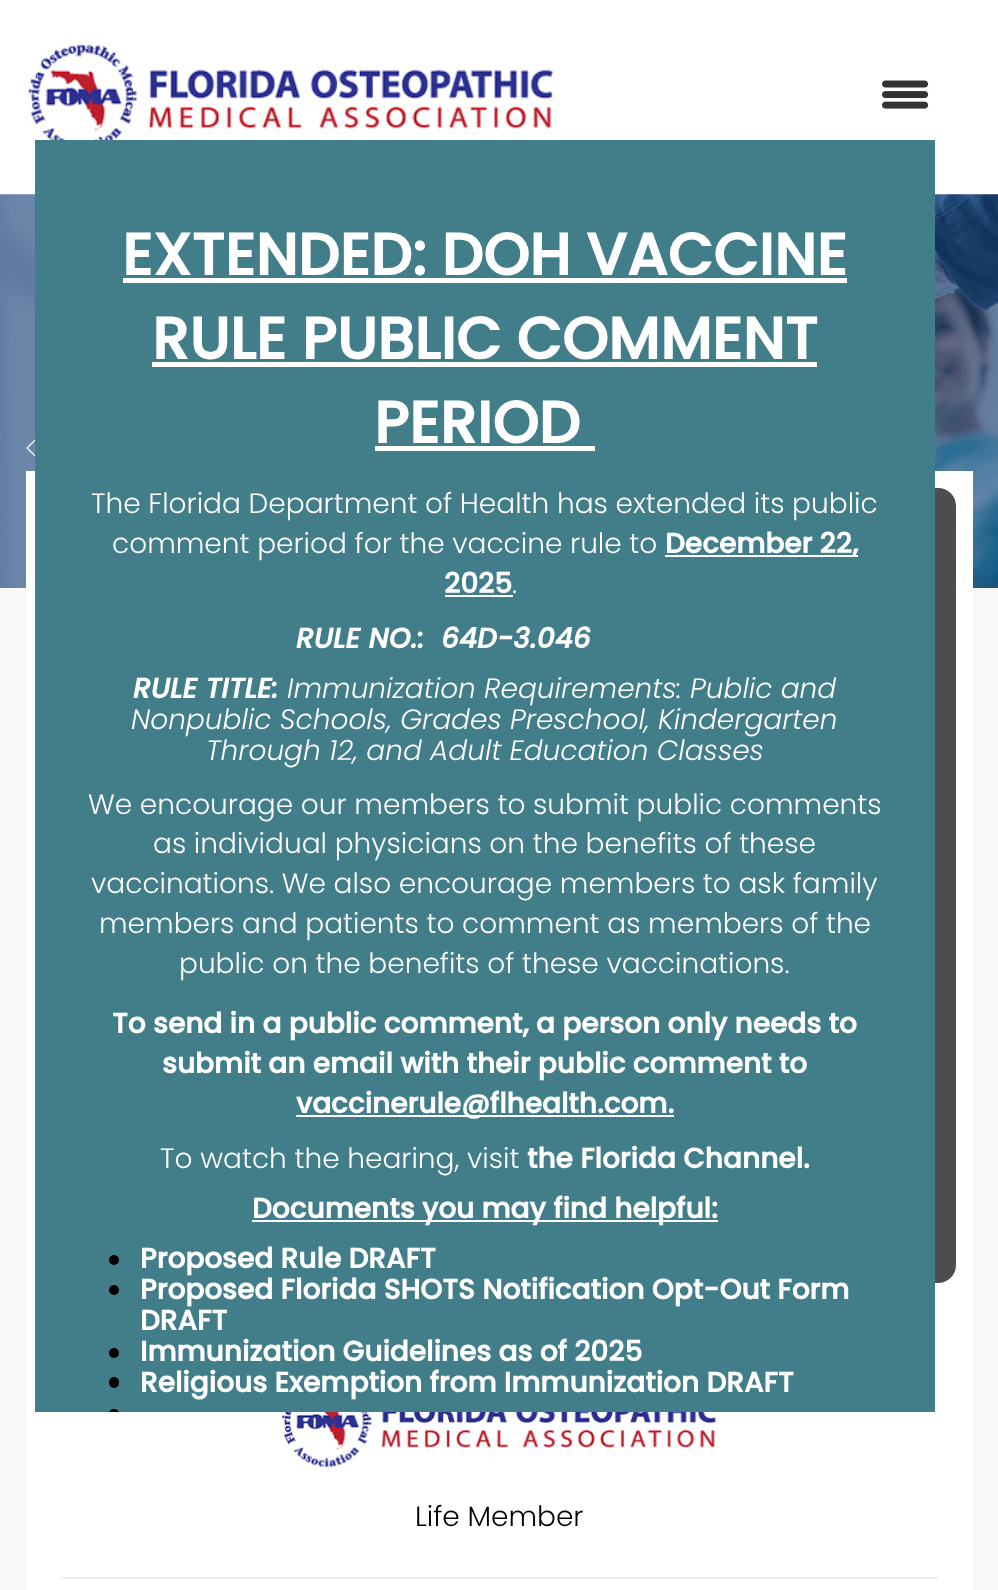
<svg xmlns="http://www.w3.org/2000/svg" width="998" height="1590">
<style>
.a{font:bold 58.75px Poppins;fill:#fff}
.b{font:300 28px Poppins;fill:#fff}
.c{font:bold 28px Poppins;fill:#fff}
.d{font:italic bold 28px Poppins;fill:#fff}
.e{font:italic 300 28px Poppins;fill:#fff}
.f{font:300 28px Poppins;fill:#000}
</style>
<rect width="100%" height="100%" fill="#f8f8f8"/>
<path fill="#fff" d="M0 0h998v194H0z"/>
<image href="1.png" x="27" y="44" width="527" height="109"/>
<image href="2.png" x="882" y="80" width="47" height="29"/>
<image href="3.png" x="0" y="194" width="998" height="394"/>
<path fill="#fff" d="M26 471h947v1119H26z"/>
<rect fill="#4d4d4d" x="44" y="488" width="912" height="795" rx="18"/>
<path fill="#427e8a" d="M35 140h900v1272H35z"/>
<path fill="#fff" d="M123 278h724v5H123z"/>
<path fill="#fff" d="M152 362h665v5H152z"/>
<path fill="#fff" d="M375 446h220v5H375z"/>
<path fill="#fff" d="M665 555h193v2H665z"/>
<path fill="#fff" d="M445 595h68v2H445z"/>
<path fill="#fff" d="M296 1115h378v2H296z"/>
<path fill="#fff" d="M252 1220h466v2H252z"/>
<circle fill="#000" cx="114" cy="1260" r="5"/>
<circle fill="#000" cx="114" cy="1290" r="5"/>
<circle fill="#000" cx="114" cy="1353" r="5"/>
<rect fill="#000" x="109" y="1377" width="10" height="11" rx="5"/>
<path fill="#000" d="M114 1409c3 0 5 2 5 5v-2h-10v2c0-3 2-5 5-5z"/>
<image href="4.png" x="26" y="439" width="9" height="18"/>
<image href="5.png" x="281" y="1412" width="436" height="56"/>
<path fill="#eee" d="M61 1577h877v2H61z"/>
<text class="a" x="122" y="275">EXTENDED: DOH VACCINE</text>
<text class="a" x="152" y="359">RULE PUBLIC COMMENT</text>
<text class="a" x="374" y="443">PERIOD</text>
<text class="b" x="91" y="513">The Florida Department of Health has extended its public</text>
<text class="b" x="112" y="553">comment period for the vaccine rule to</text>
<text class="c" x="665" y="553">December 22,</text>
<text class="c" x="444" y="593">2025</text>
<text class="b" x="512" y="593">.</text>
<text class="d" x="296" y="648">RULE NO.:</text>
<text class="d" x="441" y="648">64D-3.046</text>
<text class="d" x="133" y="698">RULE TITLE:</text>
<text class="e" x="287" y="698">Immunization Requirements: Public and</text>
<text class="e" x="131" y="729">Nonpublic Schools, Grades Preschool, Kindergarten</text>
<text class="e" x="206" y="760">Through 12, and Adult Education Classes</text>
<text class="b" x="88" y="814">We encourage our members to submit public comments</text>
<text class="b" x="153" y="853">as individual physicians on the benefits of these</text>
<text class="b" x="91" y="893">vaccinations. We also encourage members to ask family</text>
<text class="b" x="99" y="933">members and patients to comment as members of the</text>
<text class="b" x="179" y="973">public on the benefits of these vaccinations.</text>
<text class="c" x="112" y="1033">To send in a public comment, a person only needs to</text>
<text class="c" x="162" y="1073">submit an email with their public comment to</text>
<text class="c" x="296" y="1113">vaccinerule@flhealth.com.</text>
<text class="b" x="160" y="1168">To watch the hearing, visit</text>
<text class="c" x="527" y="1168">the Florida Channel.</text>
<text class="c" x="252" y="1218">Documents you may find helpful:</text>
<text class="c" x="140" y="1268">Proposed Rule DRAFT</text>
<text class="c" x="140" y="1299">Proposed Florida SHOTS Notification Opt-Out Form</text>
<text class="c" x="140" y="1330">DRAFT</text>
<text class="c" x="140" y="1361">Immunization Guidelines as of 2025</text>
<text class="c" x="140" y="1392">Religious Exemption from Immunization DRAFT</text>
<text class="f" x="415" y="1526">Life Member</text>
</svg>
